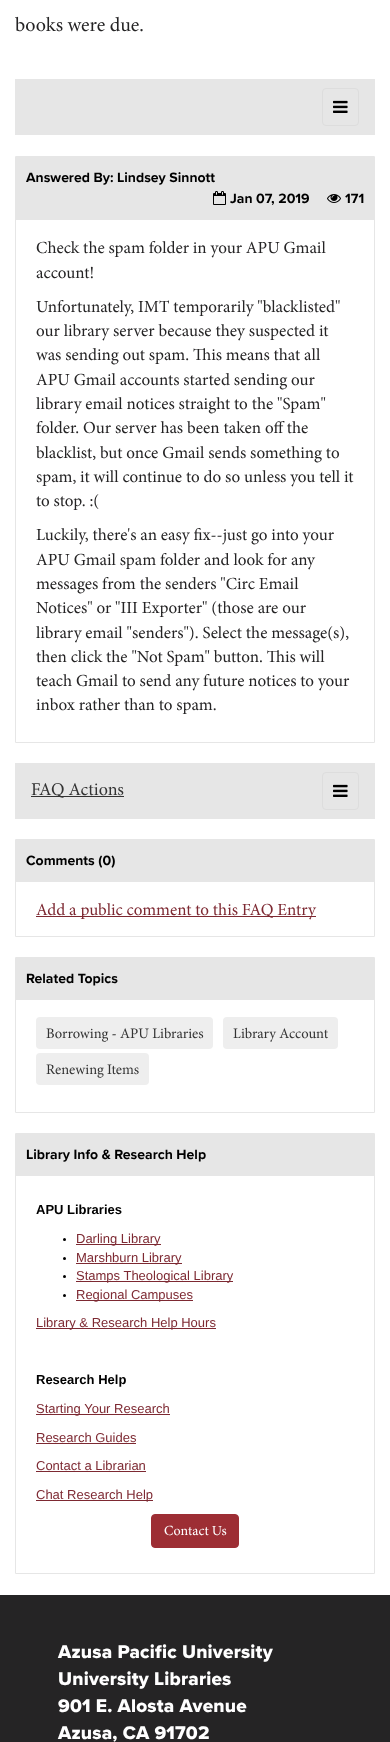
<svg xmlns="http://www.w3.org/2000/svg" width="390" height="1742">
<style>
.a{font:20px Minion;fill:#252425}
.b{font:bold 14px Proxima Nova;fill:#000}
.c{font:17px Minion;fill:#252425}
.d{font:18px Minion;fill:#333}
.e{font:17px Minion;fill:#7d2932}
.f{font:14.5px Minion;fill:#333}
.g{font:bold 13px Liberation Sans;fill:#000}
.h{font:13px Liberation Sans;fill:#7d2932}
.i{font:14px Minion;fill:#fff}
.j{font:800 19px Proxima Nova;letter-spacing:0.2px;fill:#fff}
</style>
<rect width="100%" height="100%" fill="#fff"/>
<path fill="#e6e6e6" d="M15 79h360v56H15z"/>
<rect fill="none" stroke="#ddd" x="322.5" y="88.5" width="36" height="37" rx="3.5"/>
<image href="1.png" x="333" y="100" width="15" height="13"/>
<path fill="none" stroke="#e6e6e6" d="M15.5 156.5h359v586H15.5z"/>
<path fill="#e6e6e6" d="M16 157h358v63H16z"/>
<image href="2.png" x="213" y="191" width="13" height="14"/>
<image href="3.png" x="327" y="194" width="14" height="9"/>
<path fill="#e6e6e6" d="M15 763h360v56H15z"/>
<path fill="#333" d="M31 796h93v1H31z"/>
<rect fill="none" stroke="#ddd" x="322.5" y="772.5" width="36" height="37" rx="3.5"/>
<image href="1.png" x="333" y="784" width="15" height="13"/>
<path fill="none" stroke="#e6e6e6" d="M15.5 839.5h359v97H15.5z"/>
<path fill="#e6e6e6" d="M16 840h358v42H16z"/>
<path fill="#7d2932" d="M36 916h280v1H36z"/>
<path fill="none" stroke="#e6e6e6" d="M15.5 957.5h359v155H15.5z"/>
<path fill="#e6e6e6" d="M16 958h358v42H16z"/>
<rect fill="#eee" x="36" y="1017" width="177" height="32" rx="4"/>
<rect fill="#eee" x="223" y="1017" width="115" height="32" rx="4"/>
<rect fill="#eee" x="36" y="1053" width="113" height="32" rx="4"/>
<path fill="none" stroke="#e6e6e6" d="M15.5 1133.5h359v440H15.5z"/>
<path fill="#e6e6e6" d="M16 1134h358v42H16z"/>
<circle fill="#000" cx="64.5" cy="1239.5" r="1.5"/>
<path fill="#7d2932" d="M76 1244h85v1H76z"/>
<circle fill="#000" cx="64.5" cy="1258.5" r="1.5"/>
<path fill="#7d2932" d="M76 1263h106v1H76z"/>
<circle fill="#000" cx="64.5" cy="1276.5" r="1.5"/>
<path fill="#7d2932" d="M76 1281h157v1H76z"/>
<circle fill="#000" cx="64.5" cy="1295.5" r="1.5"/>
<path fill="#7d2932" d="M76 1300h117v1H76z"/>
<path fill="#7d2932" d="M36 1328h180v1H36z"/>
<path fill="#7d2932" d="M36 1414h134v1H36z"/>
<path fill="#7d2932" d="M36 1443h100v1H36z"/>
<path fill="#7d2932" d="M36 1471h110v1H36z"/>
<path fill="#7d2932" d="M36 1500h117v1H36z"/>
<rect fill="#9d2e34" stroke="#9d2e34" x="151.5" y="1514.5" width="87" height="33" rx="3.5"/>
<path fill="#252425" d="M0 1595h390v147H0z"/>
<text class="a" x="15" y="31">books were due.</text>
<text class="b" x="26" y="182">Answered By: Lindsey Sinnott</text>
<text class="b" x="230" y="203">Jan 07, 2019</text>
<text class="b" x="345" y="203">171</text>
<text class="c" x="36" y="253">Check the spam folder in your APU Gmail</text>
<text class="c" x="36" y="278">account!</text>
<text class="c" x="36" y="312">Unfortunately, IMT temporarily "blacklisted"</text>
<text class="c" x="36" y="336">our library server because they suspected it</text>
<text class="c" x="36" y="360">was sending out spam. This means that all</text>
<text class="c" x="36" y="385">APU Gmail accounts started sending our</text>
<text class="c" x="36" y="409">library email notices straight to the "Spam"</text>
<text class="c" x="36" y="433">folder. Our server has been taken off the</text>
<text class="c" x="36" y="458">blacklist, but once Gmail sends something to</text>
<text class="c" x="36" y="482">spam, it will continue to do so unless you tell it</text>
<text class="c" x="36" y="506">to stop. :(</text>
<text class="c" x="36" y="540">Luckily, there's an easy fix--just go into your</text>
<text class="c" x="36" y="565">APU Gmail spam folder and look for any</text>
<text class="c" x="36" y="589">messages from the senders "Circ Email</text>
<text class="c" x="36" y="613">Notices" or "III Exporter" (those are our</text>
<text class="c" x="36" y="638">library email "senders"). Select the message(s),</text>
<text class="c" x="36" y="662">then click the "Not Spam" button. This will</text>
<text class="c" x="36" y="686">teach Gmail to send any future notices to your</text>
<text class="c" x="36" y="710">inbox rather than to spam.</text>
<text class="d" x="31" y="795">FAQ Actions</text>
<text class="b" x="26" y="865">Comments (0)</text>
<text class="e" x="36" y="915">Add a public comment to this FAQ Entry</text>
<text class="b" x="26" y="983">Related Topics</text>
<text class="f" x="46" y="1038">Borrowing - APU Libraries</text>
<text class="f" x="233" y="1038">Library Account</text>
<text class="f" x="46" y="1074">Renewing Items</text>
<text class="b" x="26" y="1159">Library Info &amp; Research Help</text>
<text class="g" x="36" y="1214">APU Libraries</text>
<text class="h" x="76" y="1243">Darling Library</text>
<text class="h" x="76" y="1262">Marshburn Library</text>
<text class="h" x="76" y="1280">Stamps Theological Library</text>
<text class="h" x="76" y="1299">Regional Campuses</text>
<text class="h" x="36" y="1327">Library &amp; Research Help Hours</text>
<text class="g" x="36" y="1384">Research Help</text>
<text class="h" x="36" y="1413">Starting Your Research</text>
<text class="h" x="36" y="1442">Research Guides</text>
<text class="h" x="36" y="1470">Contact a Librarian</text>
<text class="h" x="36" y="1499">Chat Research Help</text>
<text class="i" x="164" y="1535">Contact Us</text>
<text class="j" x="58" y="1658">Azusa Pacific University</text>
<text class="j" x="58" y="1685">University Libraries</text>
<text class="j" x="58" y="1712">901 E. Alosta Avenue</text>
<text class="j" x="58" y="1739">Azusa, CA 91702</text>
</svg>
